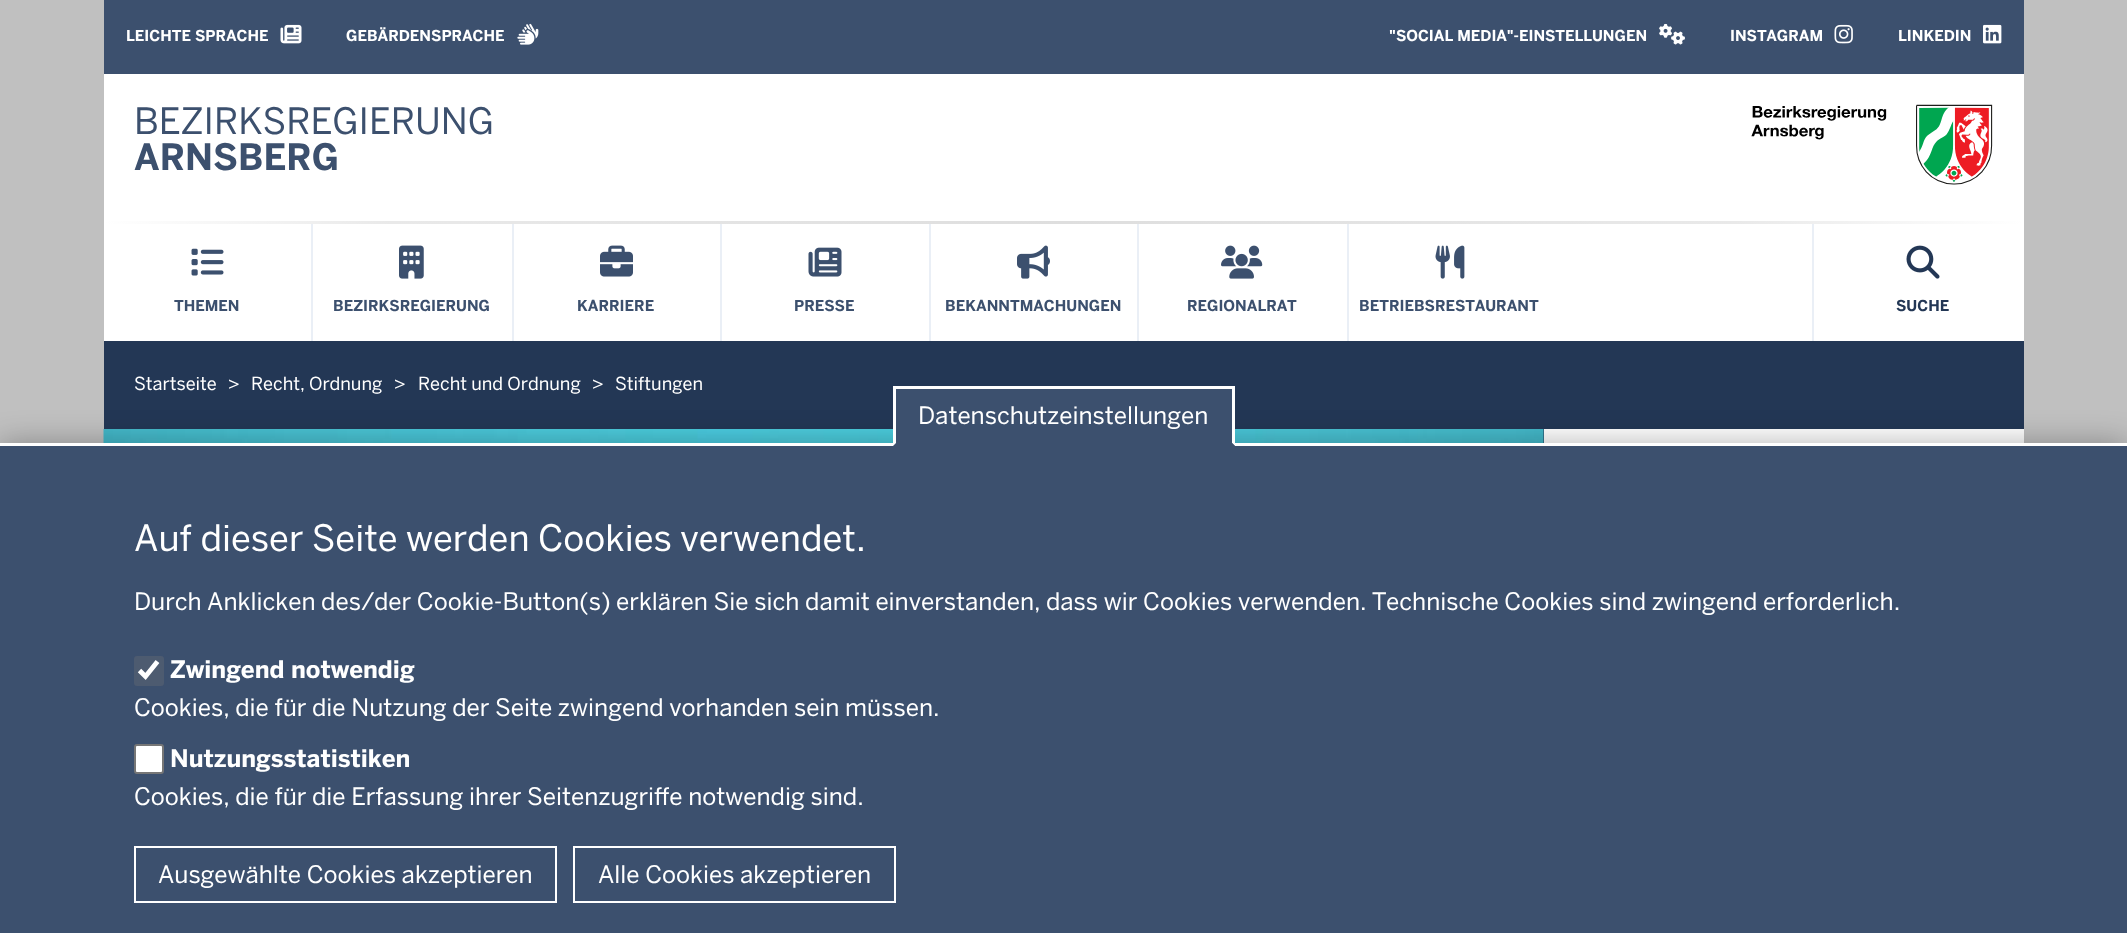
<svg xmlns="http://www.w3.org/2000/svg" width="2127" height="933">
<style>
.a{font:bold 15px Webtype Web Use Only;fill:#fff}
.b{font:36px Webtype Web Use Only;fill:#3c506e}
.c{font:bold 36px Webtype Web Use Only;fill:#3c506e}
.d{font:bold 15px Webtype Web Use Only;fill:#3c506e}
.e{font:bold 15px Webtype Web Use Only;fill:#233755}
.f{font:18px Webtype Web Use Only;fill:#fff}
.g{font:24px Webtype Web Use Only;fill:#fff}
.h{font:36px Webtype Web Use Only;fill:#fff}
.i{font:bold 24px Webtype Web Use Only;fill:#fff}
</style>
<defs>
<linearGradient id="g1" gradientUnits="userSpaceOnUse" x1="104" y1="281" x2="2024" y2="280"><stop offset="0" stop-color="#fff"/><stop offset="0.15" stop-color="#e9e9e9"/><stop offset="0.5" stop-color="#dedede"/><stop offset="0.85" stop-color="#e9e9e9"/><stop offset="1" stop-color="#fff"/></linearGradient>
</defs>
<rect width="100%" height="100%" fill="#c0c0c0"/>
<path fill="#fff" d="M104 74h1920v147H104z"/>
<path fill="#3c506e" d="M104 0h1920v74H104z"/>
<image href="1.png" x="280" y="24" width="22" height="20"/>
<image href="2.png" x="517" y="23" width="22" height="22"/>
<image href="3.png" x="1659" y="23" width="26" height="22"/>
<image href="4.png" x="1834" y="24" width="19" height="20"/>
<image href="5.png" x="1983" y="24" width="19" height="20"/>
<image href="6.png" x="1751" y="104" width="242" height="81"/>
<path fill="url(#g1)" d="M104 221h1920v3H104z"/>
<path fill="#fff" d="M104 224h1920v117H104z"/>
<path fill="#eaeff6" d="M311 224h2v117H311z"/>
<image href="7.png" x="191" y="248" width="33" height="28"/>
<path fill="#eaeff6" d="M512 224h2v117H512z"/>
<image href="8.png" x="399" y="245" width="25" height="34"/>
<path fill="#eaeff6" d="M720 224h2v117H720z"/>
<image href="9.png" x="600" y="245" width="33" height="32"/>
<path fill="#eaeff6" d="M929 224h2v117H929z"/>
<image href="10.png" x="808" y="247" width="34" height="30"/>
<path fill="#eaeff6" d="M1137 224h2v117H1137z"/>
<image href="11.png" x="1017" y="245" width="33" height="34"/>
<path fill="#eaeff6" d="M1347 224h2v117H1347z"/>
<image href="12.png" x="1221" y="245" width="42" height="34"/>
<image href="13.png" x="1435" y="245" width="30" height="34"/>
<path fill="#eaeff6" d="M1812 224h2v117H1812z"/>
<image href="14.png" x="1906" y="245" width="34" height="34"/>
<path fill="#fff" d="M1544 429h480v14H1544z"/>
<path fill="#233755" d="M104 341h1920v88H104z"/>
<path fill="#233755" d="M1543 429h1v14H1543z"/>
<image href="15.png" x="103" y="429" width="1441" height="14"/>
<path fill="#0000004d" filter="blur(15px)" d="M0 443h2127v490H0z"/>
<path fill="#fff" d="M0 443h2127v3H0z"/>
<path fill="#3c506e" d="M893 389h342v57H893z"/>
<path fill="#fff" d="M893 386h342v3H893z"/>
<path fill="#fff" d="M1235 386v60l-3-3v-54z"/>
<path fill="#3c506e" d="M1235 446h-342l3-3h336z"/>
<path fill="#fff" d="M893 446v-60l3 3v54z"/>
<path fill="#3c506e" d="M0 446h2127v487H0z"/>
<rect fill="#4d5b70" x="134" y="656" width="30" height="30" rx="3"/>
<path fill="none" stroke="#fff" stroke-width="4.8" d="M139.5 670.5l6 6l12-15"/>
<rect fill="#fff" stroke="#767676" stroke-width="2" x="135" y="745" width="28" height="28" rx="2"/>
<path fill="none" stroke="#fff" stroke-width="2" d="M135 847h421v55H135z"/>
<path fill="none" stroke="#fff" stroke-width="2" d="M574 847h321v55H574z"/>
<text class="a" x="126" y="41">LEICHTE SPRACHE</text>
<text class="a" x="346" y="41">GEBÄRDENSPRACHE</text>
<text class="a" x="1389" y="41">"SOCIAL MEDIA"-EINSTELLUNGEN</text>
<text class="a" x="1730" y="41">INSTAGRAM</text>
<text class="a" x="1898" y="41">LINKEDIN</text>
<text class="b" x="134" y="134">BEZIRKSREGIERUNG</text>
<text class="c" x="134" y="170">ARNSBERG</text>
<text class="d" x="174" y="311">THEMEN</text>
<text class="d" x="333" y="311">BEZIRKSREGIERUNG</text>
<text class="d" x="577" y="311">KARRIERE</text>
<text class="d" x="794" y="311">PRESSE</text>
<text class="d" x="945" y="311">BEKANNTMACHUNGEN</text>
<text class="d" x="1187" y="311">REGIONALRAT</text>
<text class="d" x="1359" y="311">BETRIEBSRESTAURANT</text>
<text class="e" x="1896" y="311">SUCHE</text>
<text class="f" x="134" y="390">Startseite</text>
<text class="f" x="228" y="390">&gt;</text>
<text class="f" x="251" y="390">Recht, Ordnung</text>
<text class="f" x="394" y="390">&gt;</text>
<text class="f" x="418" y="390">Recht und Ordnung</text>
<text class="f" x="592" y="390">&gt;</text>
<text class="f" x="615" y="390">Stiftungen</text>
<text class="g" x="918" y="424">Datenschutzeinstellungen</text>
<text class="h" x="134" y="551">Auf dieser Seite werden Cookies verwendet.</text>
<text class="g" x="134" y="610">Durch Anklicken des/der Cookie-Button(s) erklären Sie sich damit einverstanden, dass wir Cookies verwenden. Technische Cookies sind zwingend erforderlich.</text>
<text class="i" x="170" y="678">Zwingend notwendig</text>
<text class="g" x="134" y="716">Cookies, die für die Nutzung der Seite zwingend vorhanden sein müssen.</text>
<text class="i" x="170" y="767">Nutzungsstatistiken</text>
<text class="g" x="134" y="805">Cookies, die für die Erfassung ihrer Seitenzugriffe notwendig sind.</text>
<text class="g" x="158" y="883">Ausgewählte Cookies akzeptieren</text>
<text class="g" x="598" y="883">Alle Cookies akzeptieren</text>
</svg>
